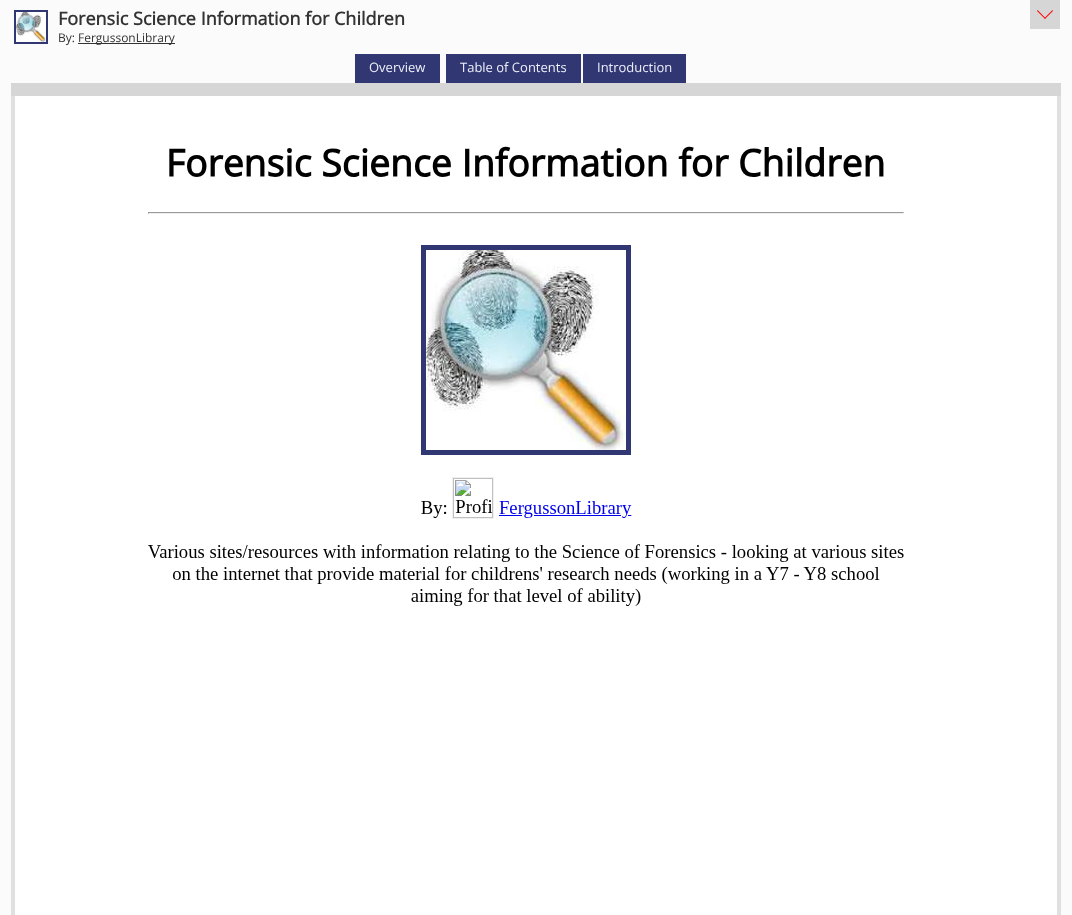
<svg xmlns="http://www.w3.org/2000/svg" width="1072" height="915">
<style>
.a{font:bold 18px Open Sans;fill:#333}
.b{font:12px Open Sans;fill:#333}
.c{font:13px Open Sans;fill:#edeff8}
</style>
<rect width="100%" height="100%" fill="#fbfbfb"/>
<path fill="#313773" d="M14 10h34v34H14z"/>
<image href="1.png" x="16" y="12" width="30" height="30"/>
<path fill="#333" d="M78 43h97v1H78z"/>
<path fill="#d6d6d6" d="M11 83h1050v13H11z"/>
<path fill="#313773" d="M355 54h85v29H355z"/>
<path fill="#313773" d="M446 54h135v29H446z"/>
<path fill="#313773" d="M583 54h103v29H583z"/>
<path fill="#fff" d="M15 96h1042v819H15z"/>
<path fill="#e0e0e0" d="M1057 96h4v819H1057z"/>
<path fill="#e0e0e0" d="M11 96h4v819H11z"/>
<image href="2.png" x="147" y="146" width="757" height="460"/>
<image href="3.png" x="1030" y="0" width="30" height="29"/>
<text class="a" x="58" y="25">Forensic Science Information for Children</text>
<text class="b" x="58" y="42">By:</text>
<text class="b" x="78" y="42">FergussonLibrary</text>
<text class="c" x="369" y="72">Overview</text>
<text class="c" x="460" y="72">Table of Contents</text>
<text class="c" x="597" y="72">Introduction</text>
</svg>
